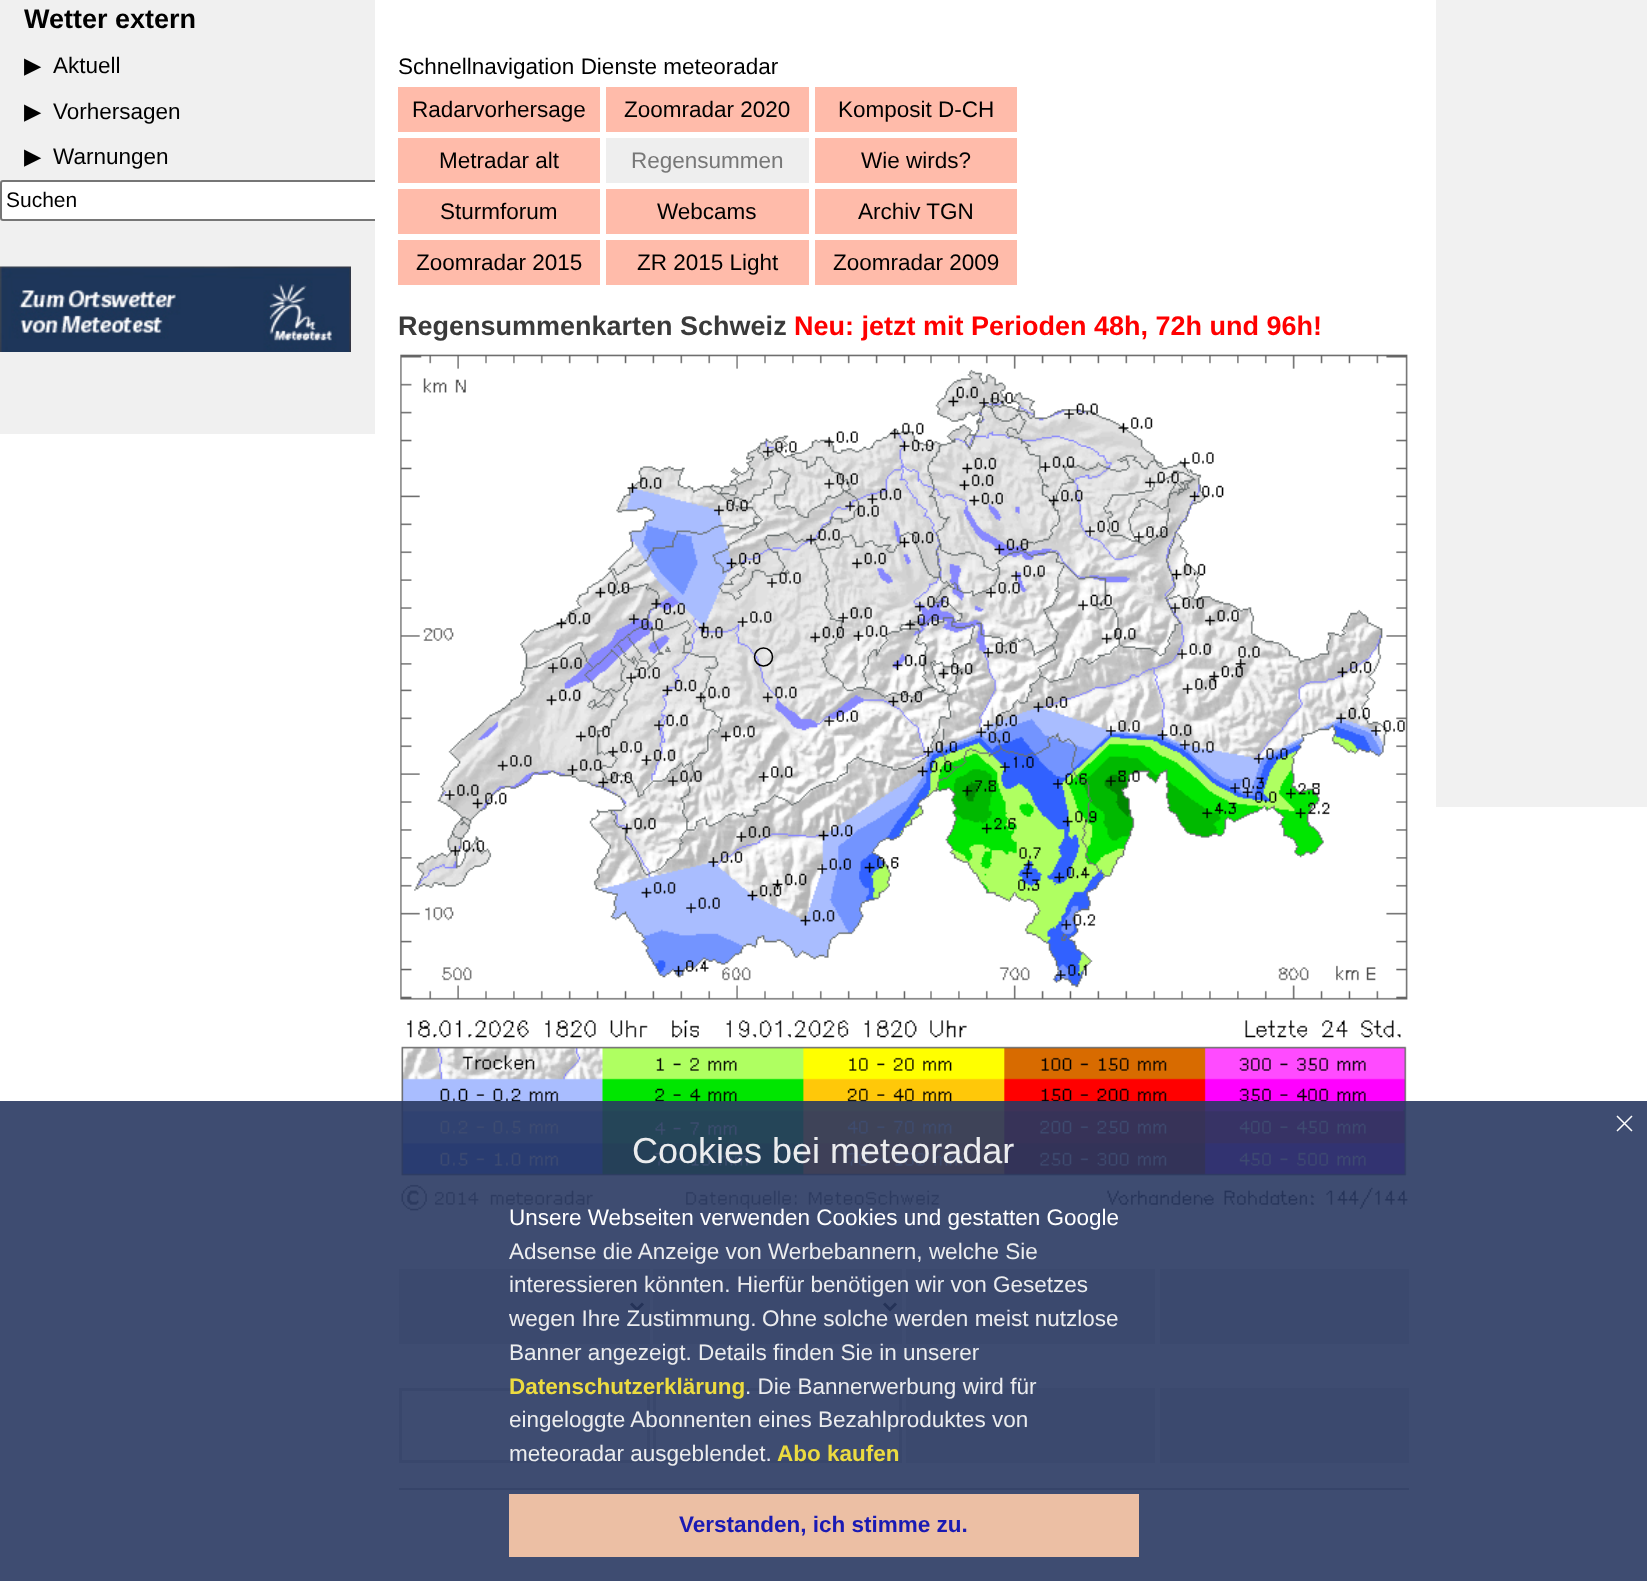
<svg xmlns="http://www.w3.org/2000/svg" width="1647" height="1581">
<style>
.a{font:bold 27px Liberation Sans;fill:#000}
.b{font:22.5px DejaVu Sans;fill:#000}
.c{font:22.5px Liberation Sans;fill:#000}
.d{font:21px Liberation Sans;fill:#000}
.e{font:22.5px Liberation Sans;fill:#777}
.f{font:bold 27px Liberation Sans;fill:#3a3a3a}
.g{font:bold 27px Liberation Sans;fill:#f00}
.h{font:36px Liberation Sans;fill:#ebecee}
.i{font:22.5px Liberation Sans;fill:#fff}
.j{font:22.5px Liberation Sans;fill:#ebecee}
.k{font:bold 22.5px Liberation Sans;fill:#ecdb40}
.l{font:bold 22.5px Liberation Sans;fill:#1a1ab3}
</style>
<defs>
<clipPath id="clip1"><path d="M0 0h375v434H0z"/></clipPath>
</defs>
<rect width="100%" height="100%" fill="#fff"/>
<path fill="#f0f0f0" d="M0 0h375v434H0z"/>
<path fill="#fff" d="M3 180h372v41h-372c-1.5 0-3-1.5-3-3v-35c0-1.5 1.5-3 3-3z"/>
<g clip-path="url(#clip1)">
<rect fill="none" stroke="#767676" stroke-width="2" x="1" y="181" width="379" height="39" rx="2"/>
</g>
<image href="1.png" x="0" y="266" width="351" height="86"/>
<path fill="#fba" d="M398 87h202v45H398z"/>
<path fill="#fba" d="M606 87h203v45H606z"/>
<path fill="#fba" d="M815 87h202v45H815z"/>
<path fill="#fba" d="M398 138h202v45H398z"/>
<path fill="#eee" d="M606 138h203v45H606z"/>
<path fill="#fba" d="M815 138h202v45H815z"/>
<path fill="#fba" d="M398 189h202v45H398z"/>
<path fill="#fba" d="M606 189h203v45H606z"/>
<path fill="#fba" d="M815 189h202v45H815z"/>
<path fill="#fba" d="M398 240h202v45H398z"/>
<path fill="#fba" d="M606 240h203v45H606z"/>
<path fill="#fba" d="M815 240h202v45H815z"/>
<image href="2.png" x="400" y="354" width="1008" height="857"/>
<circle fill="none" stroke="#000" stroke-width="1.5" cx="763.5" cy="657" r="9"/>
<path fill="#ddd" d="M399 1269h251v75H399z"/>
<path fill="none" stroke="#000" stroke-width="3" d="M631 1303.5l6 6l6-6"/>
<path fill="#ddd" d="M653 1269h249v75H653z"/>
<path fill="none" stroke="#000" stroke-width="3" d="M884 1303.5l6 6l6-6"/>
<path fill="#ddd" d="M906 1269h249v75H906z"/>
<path fill="#ddd" d="M1160 1269h249v75H1160z"/>
<path fill="none" stroke="#ccc" stroke-width="3" d="M400.5 1389.5h248v72H400.5z"/>
<path fill="none" stroke="#ccc" stroke-width="3" d="M654.5 1389.5h246v72H654.5z"/>
<path fill="#ddd" d="M906 1388h249v75H906z"/>
<path fill="#ddd" d="M1160 1388h249v75H1160z"/>
<path fill="#aaa" d="M399 1488h1010v2H399z"/>
<path fill="#f1f1f1" d="M1436 0h211v807H1436z"/>
<path fill="#293962e6" d="M0 1101h1647v480H0z"/>
<path fill="none" stroke="#fff" stroke-width="1.5" d="M1617 1116l15 15m-15 0l15-15"/>
<path fill="#ffccaae6" d="M509 1494h630v63H509z"/>
<text class="a" x="24" y="28">Wetter extern</text>
<text class="b" x="24" y="73">▶</text>
<text class="c" x="53" y="73">Aktuell</text>
<text class="b" x="24" y="119">▶</text>
<text class="c" x="53" y="119">Vorhersagen</text>
<text class="b" x="24" y="164">▶</text>
<text class="c" x="53" y="164">Warnungen</text>
<text class="d" x="6" y="207">Suchen</text>
<text class="c" x="398" y="74">Schnellnavigation Dienste meteoradar</text>
<text class="c" x="412" y="117">Radarvorhersage</text>
<text class="c" x="624" y="117">Zoomradar 2020</text>
<text class="c" x="838" y="117">Komposit D-CH</text>
<text class="c" x="439" y="168">Metradar alt</text>
<text class="e" x="631" y="168">Regensummen</text>
<text class="c" x="861" y="168">Wie wirds?</text>
<text class="c" x="440" y="219">Sturmforum</text>
<text class="c" x="657" y="219">Webcams</text>
<text class="c" x="858" y="219">Archiv TGN</text>
<text class="c" x="416" y="270">Zoomradar 2015</text>
<text class="c" x="637" y="270">ZR 2015 Light</text>
<text class="c" x="833" y="270">Zoomradar 2009</text>
<text class="f" x="398" y="335">Regensummenkarten Schweiz</text>
<text class="g" x="794" y="335">Neu: jetzt mit Perioden 48h, 72h und 96h!</text>
<text class="h" x="632" y="1163">Cookies bei meteoradar</text>
<text class="i" x="509" y="1225">Unsere Webseiten verwenden Cookies und gestatten Google</text>
<text class="j" x="509" y="1259">Adsense die Anzeige von Werbebannern, welche Sie</text>
<text class="j" x="509" y="1292">interessieren könnten. Hierfür benötigen wir von Gesetzes</text>
<text class="j" x="509" y="1326">wegen Ihre Zustimmung.</text>
<text class="j" x="762" y="1326">Ohne solche werden meist nutzlose</text>
<text class="j" x="509" y="1360">Banner angezeigt. Details finden Sie in unserer</text>
<text class="k" x="509" y="1394">Datenschutzerklärung</text>
<text class="j" x="745" y="1394">. Die Bannerwerbung wird für</text>
<text class="j" x="509" y="1427">eingeloggte Abonnenten eines Bezahlproduktes von</text>
<text class="j" x="509" y="1461">meteoradar ausgeblendet.</text>
<text class="k" x="777" y="1461">Abo kaufen</text>
<text class="l" x="679" y="1532">Verstanden, ich stimme zu.</text>
</svg>
